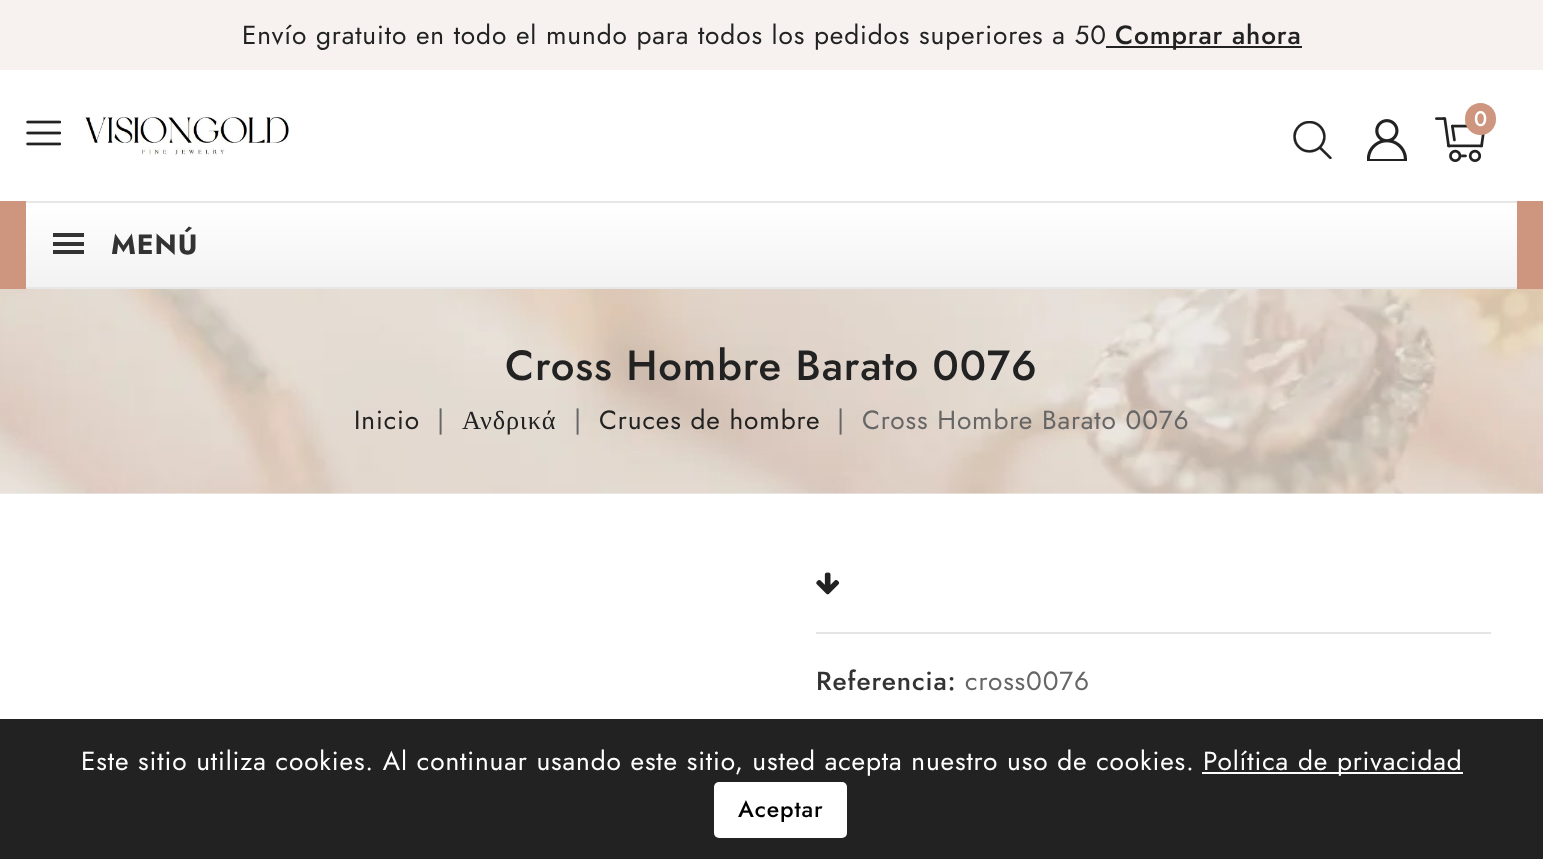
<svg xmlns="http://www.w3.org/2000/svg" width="1543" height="859">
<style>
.a{font:26.25px Jost;letter-spacing:0.88px;fill:#222}
.b{font:500 26.25px Jost;letter-spacing:0.88px;fill:#222}
.c{font:500 21px Jost;letter-spacing:0.88px;fill:#fff}
.d{font:bold 28px Jost;letter-spacing:0.88px;fill:#333}
.e{font:500 42px Jost;letter-spacing:0.88px;fill:#222}
.f{font:26.25px Jost;letter-spacing:0.88px;fill:#666}
.g{font:26.25px Liberation Serif;letter-spacing:0.88px;fill:#222}
.h{font:500 26.25px Jost;letter-spacing:0.88px;fill:#333}
.i{font:26.25px Jost;letter-spacing:0.88px;fill:#fff}
.j{font:500 23px Jost;letter-spacing:0.88px;fill:#000}
</style>
<defs>
<linearGradient id="g1" gradientUnits="userSpaceOnUse" x1="772" y1="203" x2="772" y2="287"><stop offset="0" stop-color="#fff"/><stop offset="1" stop-color="#f2f2f2"/></linearGradient>
</defs>
<rect width="100%" height="100%" fill="#fff"/>
<path fill="#f7f2f0" d="M0 0h1543v70H0z"/>
<path fill="#222" d="M1106 46h196v2H1106z"/>
<image href="1.png" x="26" y="120" width="35" height="26"/>
<image href="2.png" x="83" y="117" width="207" height="39"/>
<image href="3.png" x="1293" y="121" width="39" height="38"/>
<image href="4.png" x="1367" y="119" width="40" height="42"/>
<image href="5.png" x="1435" y="117" width="50" height="45"/>
<rect fill="#ce967e" x="1465" y="103" width="31" height="32" rx="15.5"/>
<path fill="#ce967e" d="M0 201h1543v88H0z"/>
<path fill="url(#g1)" d="M26 203h1491v84H26z"/>
<path fill="#e7e7e7" d="M26 201h1491v2H26z"/>
<path fill="#e7e7e7" d="M26 287h1491v2H26z"/>
<path fill="#333" d="M53 233h31v4H53z"/>
<path fill="#333" d="M53 242h31v4H53z"/>
<path fill="#333" d="M53 250h31v4H53z"/>
<path fill="#f2f2f2" d="M0 493h1543v1H0z"/>
<image href="6.png" x="0" y="289" width="1543" height="205"/>
<image href="7.png" x="816" y="572" width="24" height="23"/>
<path fill="#e5e5e5" d="M816 632h675v2H816z"/>
<path fill="#222" d="M0 719h1543v140H0z"/>
<path fill="#fff" d="M1202 772h261v2H1202z"/>
<rect fill="#fff" x="714" y="782" width="133" height="56" rx="5"/>
<text class="a" x="242" y="44">Envío gratuito en todo el mundo para todos los pedidos superiores a 50</text>
<text class="b" x="1115" y="44">Comprar ahora</text>
<text class="c" x="1474" y="126">0</text>
<text class="d" x="111" y="254">MENÚ</text>
<text class="e" x="505" y="380">Cross Hombre Barato 0076</text>
<text class="a" x="354" y="429">Inicio</text>
<text class="f" x="437" y="429">|</text>
<text class="g" x="462" y="429">Ανδρικά</text>
<text class="f" x="574" y="429">|</text>
<text class="a" x="599" y="429">Cruces de hombre</text>
<text class="f" x="837" y="429">|</text>
<text class="f" x="862" y="429">Cross Hombre Barato 0076</text>
<text class="h" x="816" y="690">Referencia:</text>
<text class="f" x="965" y="690">cross0076</text>
<text class="i" x="81" y="770">Este sitio utiliza cookies. Al continuar usando este sitio, usted acepta nuestro uso de cookies.</text>
<text class="i" x="1203" y="770">Política de privacidad</text>
<text class="j" x="738" y="817">Aceptar</text>
</svg>
